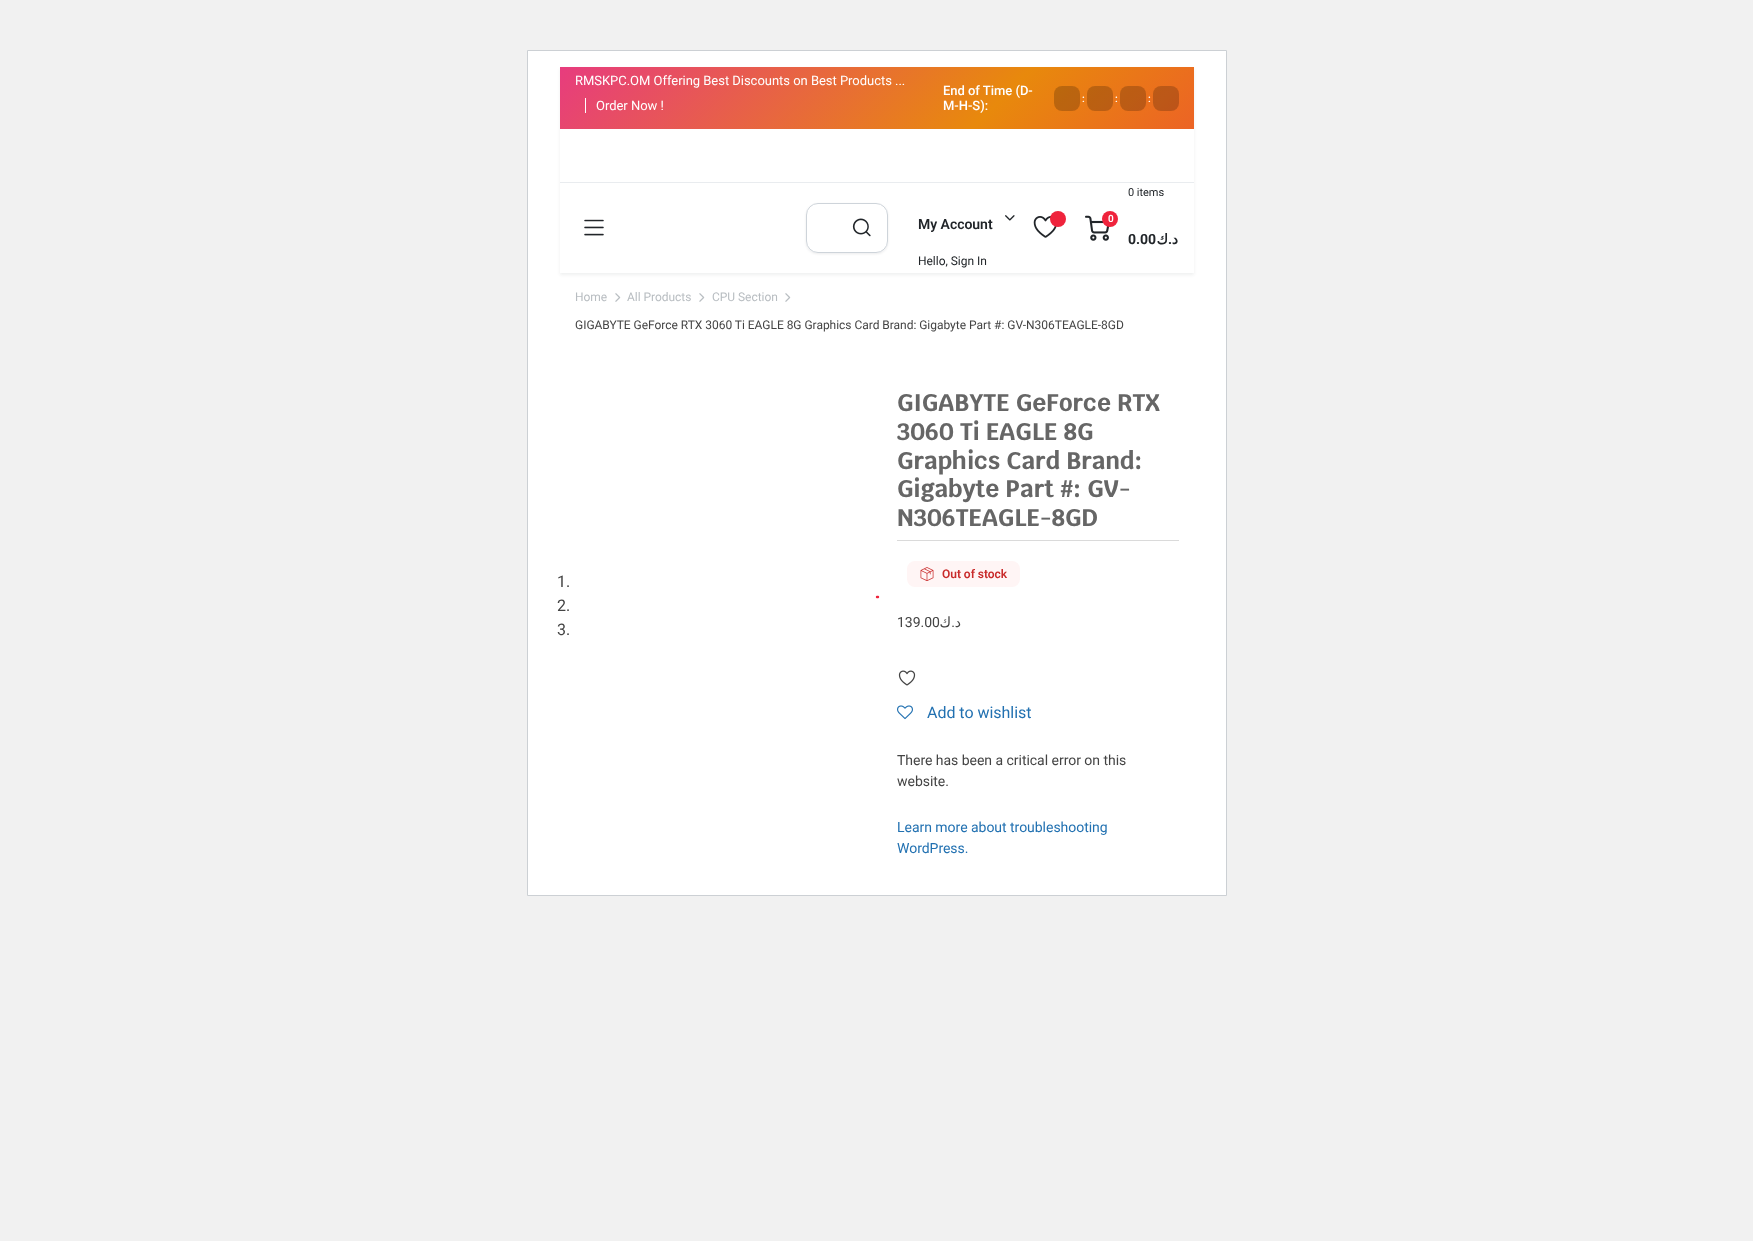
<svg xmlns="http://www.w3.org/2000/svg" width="1753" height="1241">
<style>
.a{font:13px Roboto;letter-spacing:-0.03px;fill:#fff}
.b{font:500 13px Roboto;letter-spacing:-0.03px;fill:#fff}
.c{font:600 10px Roboto;letter-spacing:-0.03px;fill:#fff}
.d{font:600 14px Roboto;letter-spacing:-0.03px;fill:#212529}
.e{font:12px Roboto;letter-spacing:-0.03px;fill:#212529}
.f{font:11px Roboto;letter-spacing:-0.03px;fill:#212529}
.g{font:bold 14px Roboto;letter-spacing:-0.03px;fill:#212529}
.h{font:bold 14px DejaVu Sans;letter-spacing:-0.03px;direction:rtl;fill:#212529}
.i{font:bold 14px Roboto;letter-spacing:-0.03px;direction:rtl;fill:#212529}
.j{font:12px Roboto;letter-spacing:-0.03px;fill:#b8bdc1}
.k{font:12px Roboto;letter-spacing:-0.03px;fill:#444}
.l{font:16px Roboto;letter-spacing:-0.03px;fill:#444}
.m{font:bold 24px Krub;fill:#666}
.n{font:600 12px Roboto;letter-spacing:-0.03px;fill:#c92a2a}
.o{font:14px Roboto;letter-spacing:-0.03px;fill:#444}
.p{font:14px DejaVu Sans;letter-spacing:-0.03px;direction:rtl;fill:#444}
.q{font:14px Roboto;letter-spacing:-0.03px;direction:rtl;fill:#444}
.r{font:16px Roboto;letter-spacing:-0.03px;fill:#2271b1}
.s{font:14px Roboto;letter-spacing:-0.03px;fill:#2271b1}
</style>
<defs>
<clipPath id="clip1"><path d="M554 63h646v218h-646zm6 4h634v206h-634z" clip-rule="evenodd"/></clipPath>
<linearGradient id="g1" gradientUnits="userSpaceOnUse" x1="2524" y1="887" x2="1132" y2="-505"><stop offset="0" stop-color="#ed1c66"/><stop offset="0.17" stop-color="#6a23d5"/><stop offset="0.33" stop-color="#23a6d5"/><stop offset="0.5" stop-color="#23d5ab"/><stop offset="0.67" stop-color="#f03e3e"/><stop offset="0.83" stop-color="#e8890c"/><stop offset="1" stop-color="#e73c7e"/></linearGradient>
<clipPath id="clip2"><path d="M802 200h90v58h-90zm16 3h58c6.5 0 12 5.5 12 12v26c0 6.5-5.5 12-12 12h-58c-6.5 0-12-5.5-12-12v-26c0-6.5 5.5-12 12-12z" clip-rule="evenodd"/></clipPath>
</defs>
<rect width="100%" height="100%" fill="#f1f1f1"/>
<path fill="#fff" stroke="#ccd0d4" d="M527.5 50.5h699v845H527.5z"/>
<g clip-path="url(#clip1)">
<path fill="#21252912" filter="blur(1.5px)" d="M560 69h634v206H560z"/>
</g>
<path fill="url(#g1)" d="M560 67h634v62H560z"/>
<path fill="#fff" d="M585 98h1v15H585z"/>
<rect fill="#00000033" x="1054" y="86" width="26" height="25" rx="8"/>
<rect fill="#00000033" x="1087" y="86" width="26" height="25" rx="8"/>
<rect fill="#00000033" x="1120" y="86" width="26" height="25" rx="8"/>
<rect fill="#00000033" x="1153" y="86" width="26" height="25" rx="8"/>
<path fill="#e9ecef" d="M560 182h634v1H560z"/>
<image href="1.png" x="584" y="219" width="20" height="17"/>
<g clip-path="url(#clip2)">
<rect fill="#21252917" filter="blur(1px)" x="806" y="204" width="82" height="50" rx="12"/>
</g>
<rect fill="none" stroke="#ced4da" x="806.5" y="203.5" width="81" height="49" rx="11.5"/>
<image href="2.png" x="852" y="218" width="19" height="19"/>
<image href="3.png" x="1005" y="215" width="10" height="6"/>
<image href="4.png" x="1033" y="216" width="24" height="22"/>
<circle fill="#ef233c" cx="1058" cy="219" r="8"/>
<image href="5.png" x="1085" y="215" width="25" height="26"/>
<circle fill="#ef233c" cx="1110" cy="219" r="8"/>
<image href="6.png" x="615" y="293" width="6" height="9"/>
<image href="6.png" x="699" y="293" width="6" height="9"/>
<image href="6.png" x="785" y="293" width="6" height="9"/>
<path fill="#dadada" d="M897 540h282v1H897z"/>
<rect fill="#fff5f5" x="907" y="561" width="113" height="26" rx="8"/>
<image href="7.png" x="920" y="567" width="14" height="14"/>
<image href="8.png" x="898" y="670" width="18" height="16"/>
<image href="9.png" x="897" y="705" width="16" height="15"/>
<path fill="none" stroke="#ef233c" stroke-width="2.4" stroke-linecap="round" d="M877 597h1"/>
<text class="a" x="575" y="85">RMSKPC.OM Offering Best Discounts on Best Products ...</text>
<text class="a" x="596" y="110">Order Now !</text>
<text class="b" x="943" y="95">End of Time (D-</text>
<text class="b" x="943" y="110">M-H-S):</text>
<text class="c" x="1082" y="102">:</text>
<text class="c" x="1115" y="102">:</text>
<text class="c" x="1148" y="102">:</text>
<text class="d" x="918" y="229">My Account</text>
<text class="e" x="918" y="265">Hello, Sign In</text>
<text class="c" x="1108" y="222">0</text>
<text class="f" x="1128" y="196">0 items</text>
<text class="g" x="1128" y="244">0.00</text>
<text class="h" x="1168" y="244">ك</text>
<text class="i" x="1172" y="244">.</text>
<text class="h" x="1178" y="244">د</text>
<text class="j" x="575" y="301">Home</text>
<text class="j" x="627" y="301">All Products</text>
<text class="j" x="712" y="301">CPU Section</text>
<text class="k" x="575" y="329">GIGABYTE GeForce RTX 3060 Ti EAGLE 8G Graphics Card Brand: Gigabyte Part #: GV-N306TEAGLE-8GD</text>
<text class="l" x="557" y="587">1.</text>
<text class="l" x="557" y="611">2.</text>
<text class="l" x="557" y="635">3.</text>
<text class="m" x="897" y="411">GIGABYTE GeForce RTX</text>
<text class="m" x="897" y="440">3060 Ti EAGLE 8G</text>
<text class="m" x="897" y="469">Graphics Card Brand:</text>
<text class="m" x="897" y="497">Gigabyte Part #: GV-</text>
<text class="m" x="897" y="526">N306TEAGLE-8GD</text>
<text class="n" x="942" y="578">Out of stock</text>
<text class="o" x="897" y="627">139.00</text>
<text class="p" x="951" y="627">ك</text>
<text class="q" x="955" y="627">.</text>
<text class="p" x="961" y="627">د</text>
<text class="r" x="927" y="718">Add to wishlist</text>
<text class="o" x="897" y="765">There has been a critical error on this</text>
<text class="o" x="897" y="786">website.</text>
<text class="s" x="897" y="832">Learn more about troubleshooting</text>
<text class="s" x="897" y="853">WordPress.</text>
</svg>
